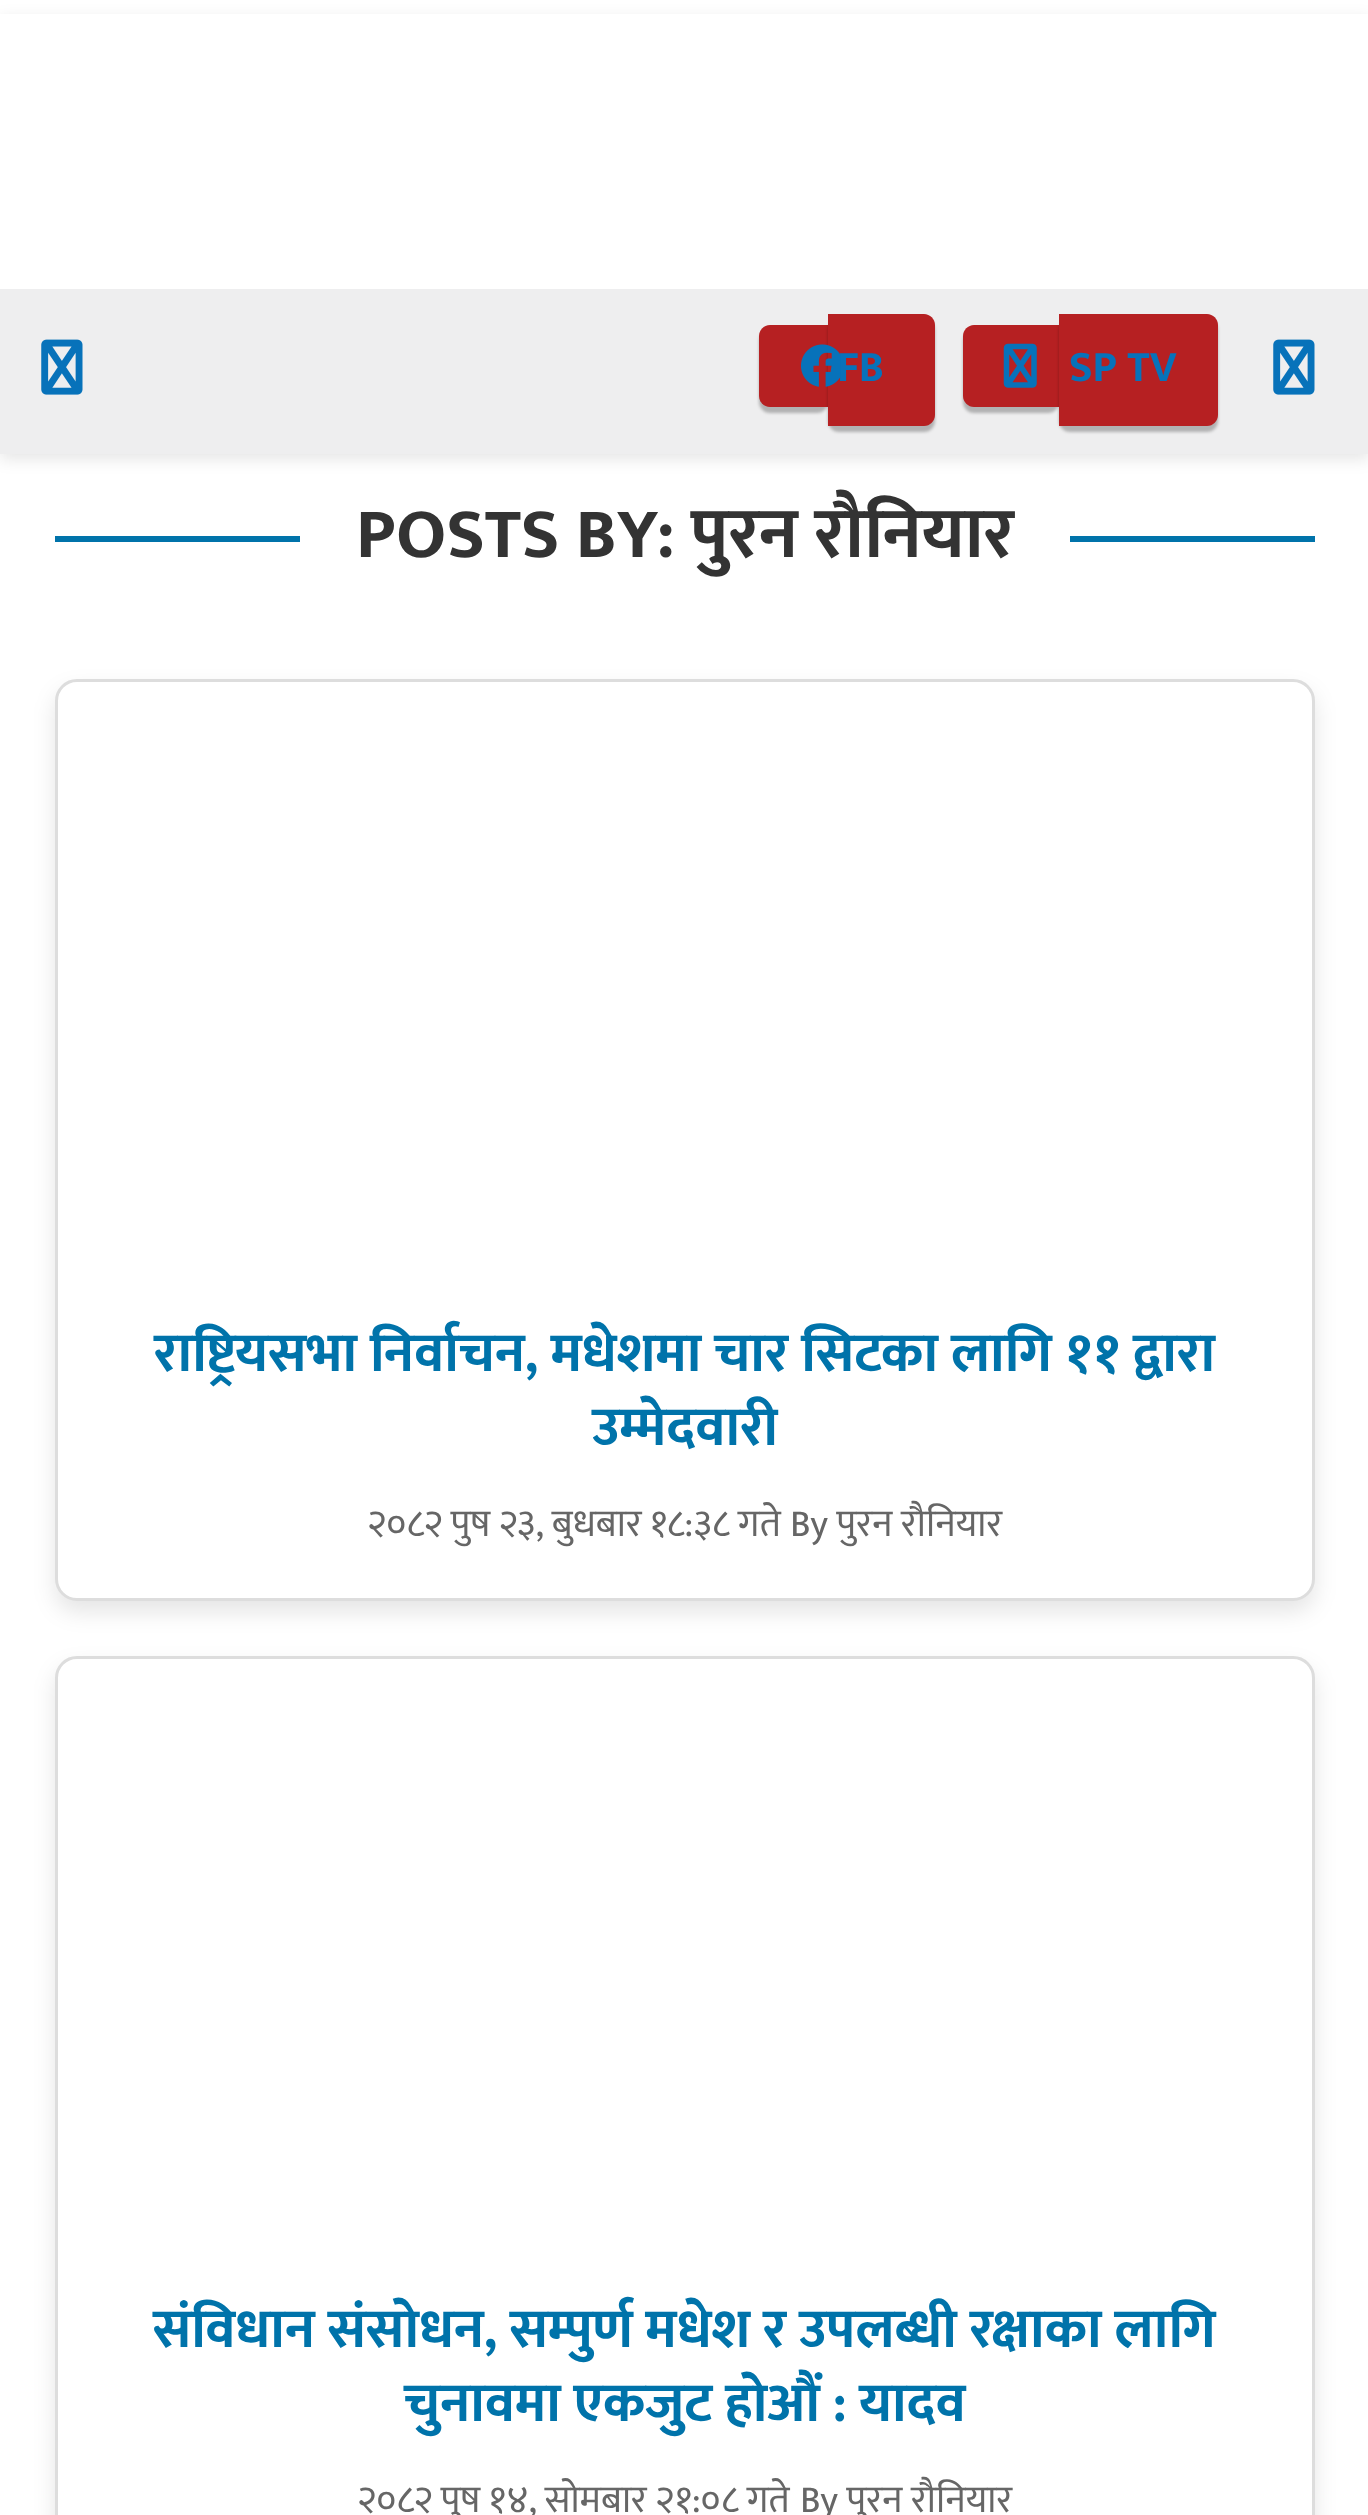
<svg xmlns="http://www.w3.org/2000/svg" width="1368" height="2515">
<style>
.a{font:bold 44px Mukta;fill:#0772ba}
.b{font:bold 71.5px Mukta;fill:#333}
.c{font:bold 55px Mukta;fill:#0073aa}
.d{font:38.5px Mukta;fill:#666}
</style>
<rect width="100%" height="100%" fill="#fff"/>
<path fill="#0000001a" filter="blur(8px)" d="M0 19h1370v440H0z"/>
<path fill="#fff" d="M0 14h1368v275H0z"/>
<path fill="#eeeeef" d="M0 289h1368v165H0z"/>
<image href="1.png" x="41" y="339" width="42" height="56"/>
<rect fill="#00000040" filter="blur(1.5px)" x="759" y="330" width="69" height="83" rx="11"/>
<path fill="#b62022" d="M770 325h58v82h-58c-6 0-11-5-11-11v-60c0-6 5-11 11-11z"/>
<rect fill="#00000040" filter="blur(1.5px)" x="828" y="319" width="107" height="113" rx="11"/>
<path fill="#b62022" d="M828 314h96c6 0 11 5 11 11v90c0 6-5 11-11 11h-96z"/>
<image href="2.png" x="800" y="344" width="44" height="43"/>
<rect fill="#00000040" filter="blur(1.5px)" x="963" y="330" width="96" height="83" rx="11"/>
<path fill="#b62022" d="M974 325h85v82h-85c-6 0-11-5-11-11v-60c0-6 5-11 11-11z"/>
<rect fill="#00000040" filter="blur(1.5px)" x="1059" y="319" width="159" height="113" rx="11"/>
<path fill="#b62022" d="M1059 314h148c6 0 11 5 11 11v90c0 6-5 11-11 11h-148z"/>
<image href="3.png" x="1003" y="343" width="34" height="45"/>
<image href="1.png" x="1273" y="339" width="42" height="56"/>
<path fill="#0073aa" d="M55 536h245v6H55z"/>
<path fill="#0073aa" d="M1070 536h245v6H1070z"/>
<rect fill="#0000001a" filter="blur(11px)" x="55" y="690" width="1260" height="922" rx="22"/>
<rect fill="#fff" stroke="#ddd" stroke-width="3" x="56.5" y="680.5" width="1257" height="919" rx="20.5"/>
<rect fill="#0000001a" filter="blur(11px)" x="55" y="1667" width="1260" height="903" rx="22"/>
<rect fill="#fff" stroke="#ddd" stroke-width="3" x="56.5" y="1657.5" width="1257" height="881" rx="20.5"/>
<text class="a" x="837" y="381">FB</text>
<text class="a" x="1069" y="381">SP TV</text>
<text class="b" x="356" y="557">POSTS BY: पुरन रौनियार</text>
<text class="c" x="154" y="1371">राष्ट्रियसभा निर्वाचन, मधेशमा चार सिटका लागि ११ द्वारा</text>
<text class="c" x="592" y="1445">उम्मेदवारी</text>
<text class="d" x="367" y="1536" word-spacing="-0.5">२०८२ पुष २३, बुधबार १८:३८ गते</text>
<text class="d" x="790" y="1536">By पुरन रौनियार</text>
<text class="c" x="153" y="2347">संविधान संसोधन, सम्पुर्ण मधेश र उपलब्धी रक्षाका लागि</text>
<text class="c" x="404" y="2421">चुनावमा एकजुट होऔं : यादव</text>
<text class="d" x="357" y="2512" word-spacing="-0.5">२०८२ पुष १४, सोमबार २१:०८ गते</text>
<text class="d" x="800" y="2512">By पुरन रौनियार</text>
</svg>
